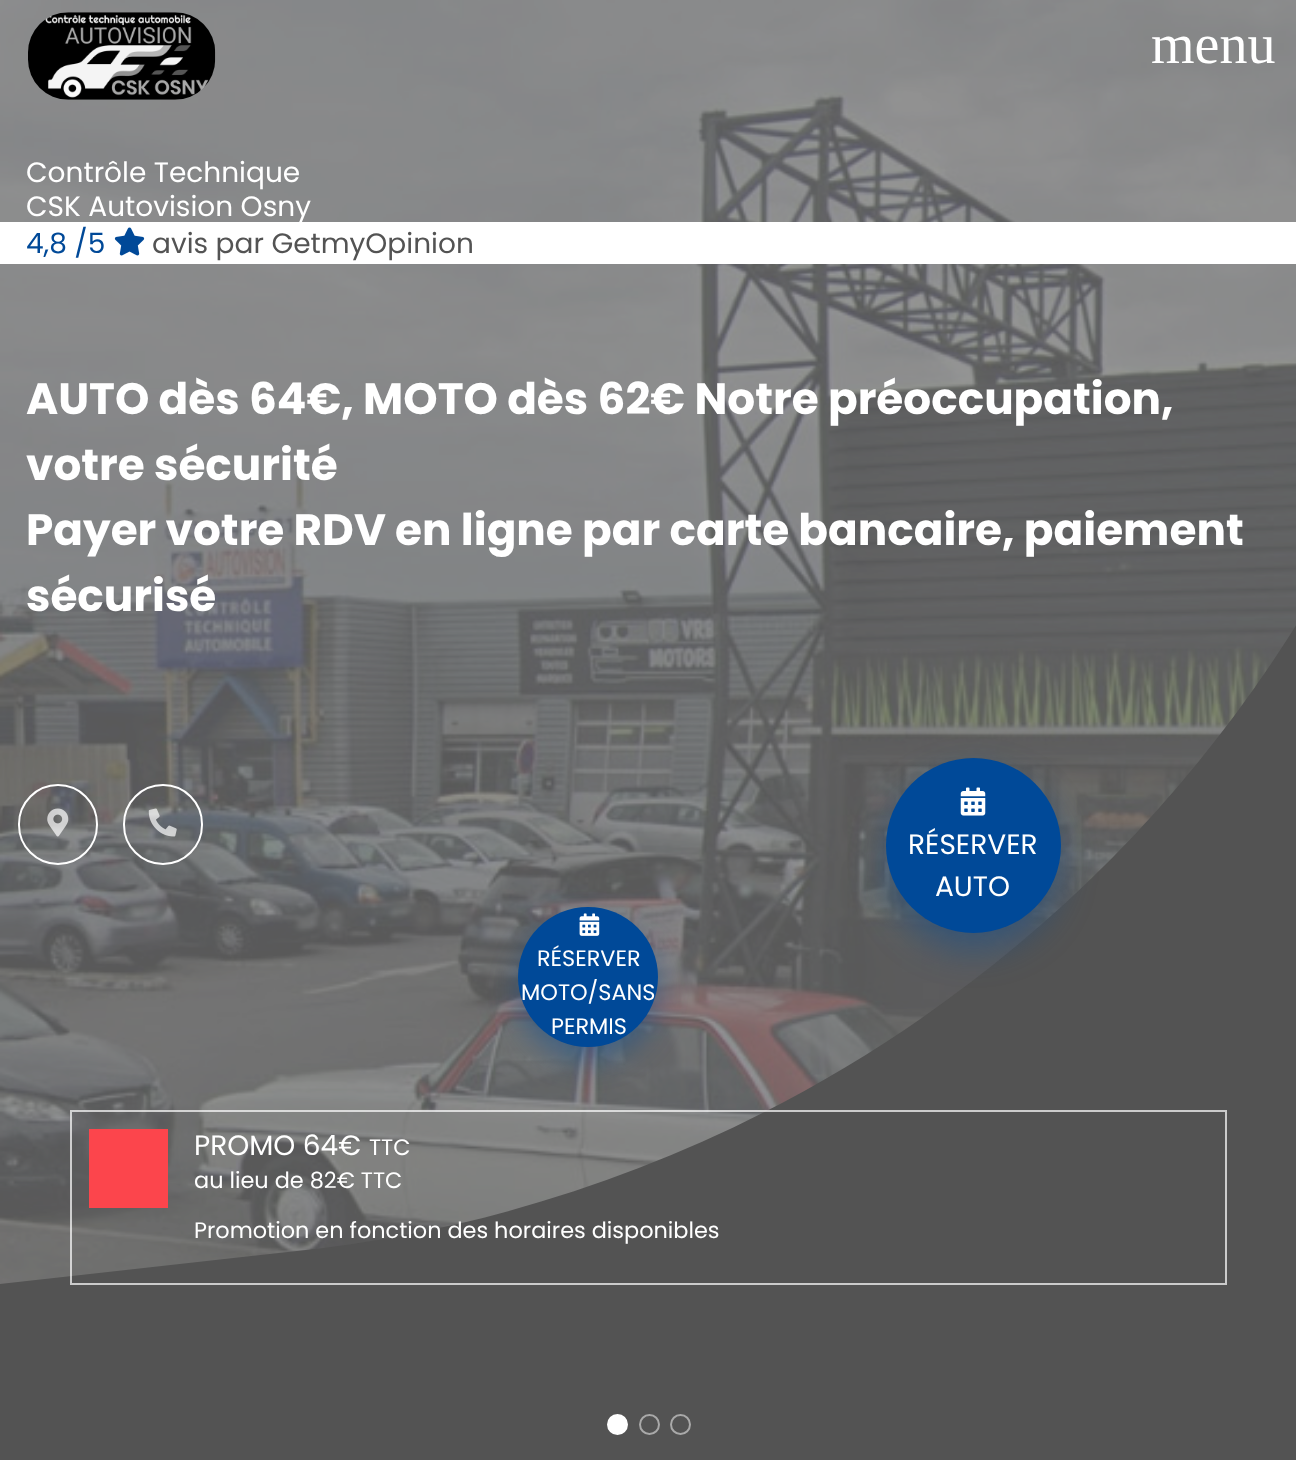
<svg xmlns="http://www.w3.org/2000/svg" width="1296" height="1460">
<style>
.a{font:56px Liberation Serif;fill:#fff}
.b{font:28px Poppins;fill:#fff}
.c{font:28px Poppins;fill:#004998}
.d{font:28px Poppins;fill:#535353}
.e{font:bold 43.75px Poppins;fill:#fff}
.f{font:22.4px Poppins;fill:#fff}
</style>
<rect width="100%" height="100%" fill="#949494"/>
<image href="1.png" x="0" y="0" width="1296" height="1284"/>
<image href="2.png" x="28" y="12" width="188" height="88"/>
<path fill="#535353" d="M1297 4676l-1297 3v-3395l297-33c412-44 781-276 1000-627z"/>
<path fill="#fff" d="M0 222h1296v42H0z"/>
<image href="3.png" x="114" y="227" width="31" height="29"/>
<rect fill="none" stroke="#fff" stroke-width="2" x="19" y="785" width="78" height="79" rx="39"/>
<image href="4.png" x="47" y="808" width="22" height="29"/>
<rect fill="none" stroke="#fff" stroke-width="2" x="124" y="785" width="78" height="79" rx="39"/>
<image href="5.png" x="148" y="808" width="29" height="29"/>
<rect fill="#0049986b" filter="blur(17.5px)" x="886" y="775" width="175" height="175" rx="87.5"/>
<circle fill="#004998" cx="973.5" cy="845.5" r="87.5"/>
<image href="6.png" x="960" y="787" width="26" height="29"/>
<rect fill="#0049986b" filter="blur(14px)" x="518" y="921" width="140" height="140" rx="70"/>
<circle fill="#004998" cx="588" cy="977" r="70"/>
<image href="7.png" x="579" y="913" width="21" height="23"/>
<path fill="none" stroke="#ffffffb3" stroke-width="2" d="M71 1111h1155v173H71z"/>
<path fill="#fc454c" d="M89 1129h79v79H89z"/>
<circle fill="#fff" stroke="#fff" stroke-width="2" cx="617.5" cy="1424.5" r="9.5"/>
<circle fill="none" stroke="#a9a9a9" stroke-width="2" cx="649.5" cy="1424.5" r="9.5"/>
<circle fill="none" stroke="#a9a9a9" stroke-width="2" cx="680.5" cy="1424.5" r="9.5"/>
<text class="a" x="1151" y="63">menu</text>
<text class="b" x="26" y="182">Contrôle Technique</text>
<text class="b" x="26" y="216">CSK Autovision Osny</text>
<text class="c" x="26" y="253">4,8 /5</text>
<text class="d" x="152" y="253">avis par GetmyOpinion</text>
<text class="e" x="26" y="414">AUTO dès 64€, MOTO dès 62€ Notre préoccupation,</text>
<text class="e" x="26" y="480">votre sécurité</text>
<text class="e" x="26" y="545">Payer votre RDV en ligne par carte bancaire, paiement</text>
<text class="e" x="26" y="611">sécurisé</text>
<text class="b" x="908" y="854">RÉSERVER</text>
<text class="b" x="935" y="896">AUTO</text>
<text class="f" x="537" y="966">RÉSERVER</text>
<text class="f" x="521" y="1000">MOTO/SANS</text>
<text class="f" x="551" y="1034">PERMIS</text>
<text class="b" x="194" y="1155">PROMO 64€</text>
<text class="f" x="369" y="1155">TTC</text>
<text class="f" x="194" y="1188">au lieu de 82€ TTC</text>
<text class="f" x="194" y="1238">Promotion en fonction des horaires disponibles</text>
</svg>
